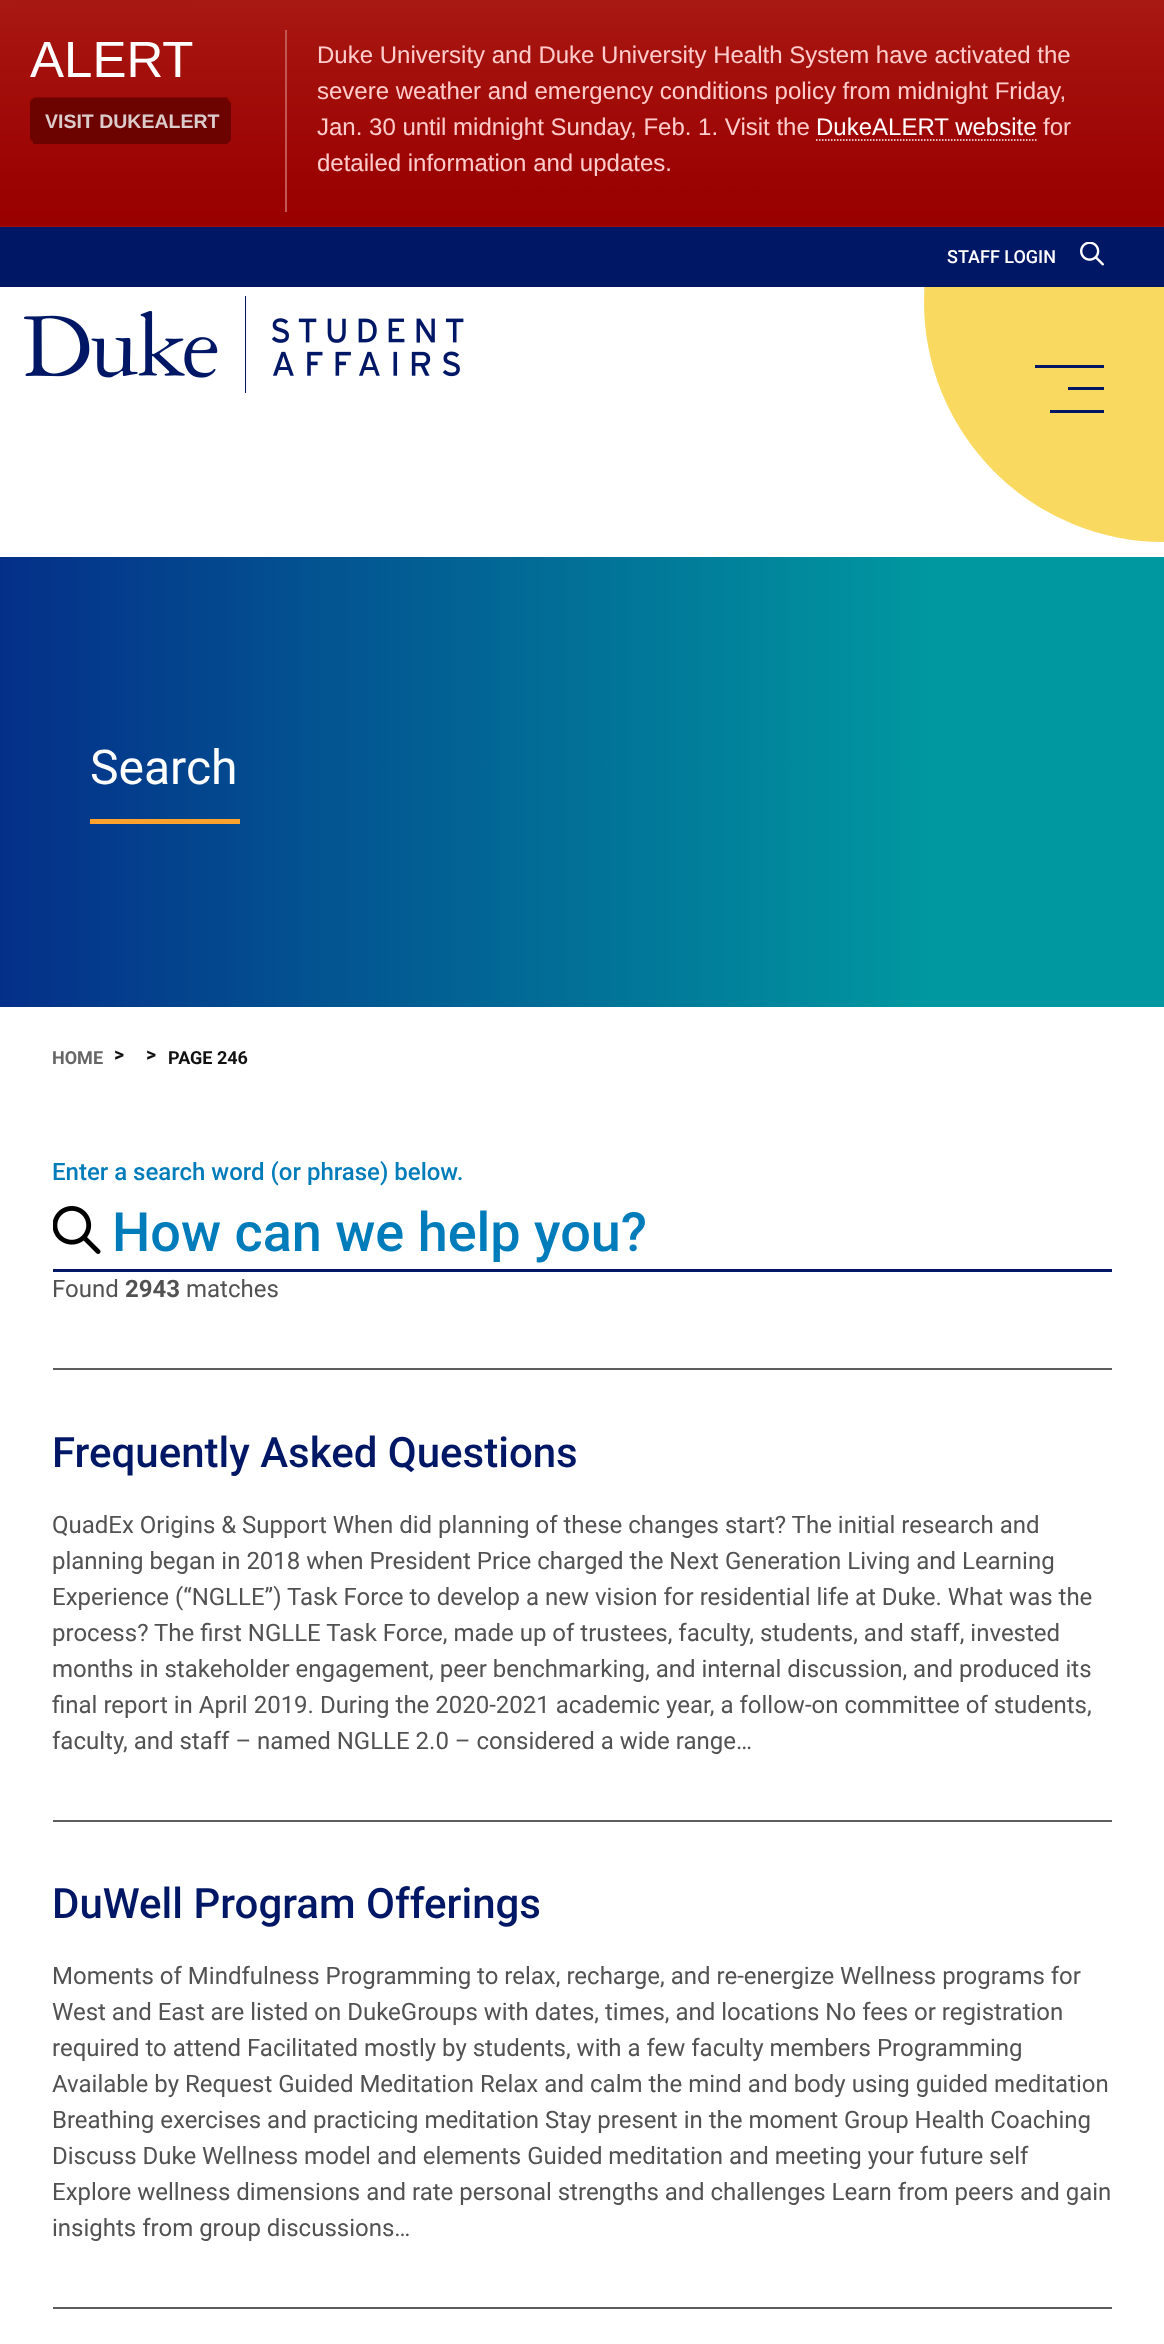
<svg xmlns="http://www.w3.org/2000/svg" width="1164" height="2344">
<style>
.a{font:51px Liberation Sans;fill:#fff}
.b{font:bold 19.5px Liberation Sans;fill:#dccbcb}
.c{font:24px Liberation Sans;fill:#fcc}
.d{font:24px Liberation Sans;fill:#fff}
.e{font:500 18px Roboto;fill:#fff}
.f{font:48px Roboto;fill:#fff}
.g{font:bold 18px Roboto;fill:#666}
.h{font:bold 19.5px Roboto;fill:#111}
.i{font:bold 18px Roboto;fill:#111}
.j{font:500 24px Roboto;fill:#007cbb}
.k{font:500 54px Roboto;fill:#007cbb}
.l{font:24px Roboto;fill:#525252}
.m{font:bold 24px Roboto;fill:#525252}
.n{font:500 42px Roboto;fill:#001766}
</style>
<defs>
<linearGradient id="g1" gradientUnits="userSpaceOnUse" x1="0" y1="782" x2="1164" y2="782"><stop offset="0" stop-color="#042f89"/><stop offset="0.8" stop-color="#0098a0"/></linearGradient>
</defs>
<rect width="100%" height="100%" fill="#fff"/>
<circle fill="#f9d95f" cx="1164" cy="302" r="240"/>
<path fill="#ad1e17" d="M0 226h1164v1H0z"/>
<image href="1.png" x="0" y="0" width="1164" height="227"/>
<image href="2.png" x="30" y="97" width="200" height="46"/>
<image href="3.png" x="33" y="99" width="198" height="45"/>
<path fill="#c15752" d="M285 30h2v182H285z"/>
<path fill="none" stroke="#fff" stroke-width="1.5" stroke-dasharray="1.5 1.5" d="M816 140h220.5"/>
<path fill="#001766" d="M1035 365h69v3H1035z"/>
<path fill="#001766" d="M1068 387h36v3H1068z"/>
<path fill="#001766" d="M1050 410h54v3H1050z"/>
<path fill="#001766" d="M0 227h1164v60H0z"/>
<image href="4.png" x="1080" y="242" width="24" height="24"/>
<image href="5.png" x="24" y="296" width="440" height="97"/>
<path fill="url(#g1)" d="M0 557h1164v450H0z"/>
<path fill="#ffa12d" d="M90 819h150v5H90z"/>
<image href="6.png" x="53" y="1206" width="48" height="48"/>
<path fill="#001766" d="M53 1269h1059v3H53z"/>
<path fill="#5d5d5d" d="M53 1368h1059v2H53z"/>
<path fill="#5d5d5d" d="M53 1820h1059v2H53z"/>
<path fill="#5d5d5d" d="M53 2307h1059v2H53z"/>
<text class="a" x="30" y="77">ALERT</text>
<text class="b" x="45" y="128">VISIT DUKEALERT</text>
<text class="c" x="317" y="63">Duke University and Duke University Health System have activated the</text>
<text class="c" x="317" y="99">severe weather and emergency conditions policy from midnight Friday,</text>
<text class="c" x="317" y="135">Jan. 30 until midnight Sunday, Feb. 1. Visit the</text>
<text class="d" x="816" y="135">DukeALERT website</text>
<text class="c" x="1043" y="135">for</text>
<text class="c" x="317" y="171">detailed information and updates.</text>
<text class="e" x="947" y="263">STAFF LOGIN</text>
<text class="f" x="90" y="784">Search</text>
<text class="g" x="52" y="1064">HOME</text>
<text class="h" x="114" y="1061">&gt;</text>
<text class="h" x="146" y="1061">&gt;</text>
<text class="i" x="168" y="1064">PAGE 246</text>
<text class="j" x="52" y="1180">Enter a search word (or phrase) below.</text>
<text class="k" x="112" y="1251">How can we help you?</text>
<text class="l" x="52" y="1297">Found</text>
<text class="m" x="125" y="1297">2943</text>
<text class="l" x="186" y="1297">matches</text>
<text class="n" x="52" y="1467">Frequently Asked Questions</text>
<text class="l" x="52" y="1533">QuadEx Origins &amp; Support When did planning of these changes start? The initial research and</text>
<text class="l" x="52" y="1569">planning began in 2018 when President Price charged the Next Generation Living and Learning</text>
<text class="l" x="52" y="1605">Experience (“NGLLE”) Task Force to develop a new vision for residential life at Duke. What was the</text>
<text class="l" x="52" y="1641">process? The first NGLLE Task Force, made up of trustees, faculty, students, and staff, invested</text>
<text class="l" x="52" y="1677">months in stakeholder engagement, peer benchmarking, and internal discussion, and produced its</text>
<text class="l" x="52" y="1713">final report in April 2019. During the 2020-2021 academic year, a follow-on committee of students,</text>
<text class="l" x="52" y="1749">faculty, and staff – named NGLLE 2.0 – considered a wide range…</text>
<text class="n" x="52" y="1918">DuWell Program Offerings</text>
<text class="l" x="52" y="1984">Moments of Mindfulness Programming to relax, recharge, and re-energize Wellness programs for</text>
<text class="l" x="52" y="2020">West and East are listed on DukeGroups with dates, times, and locations No fees or registration</text>
<text class="l" x="52" y="2056">required to attend Facilitated mostly by students, with a few faculty members Programming</text>
<text class="l" x="52" y="2092">Available by Request Guided Meditation Relax and calm the mind and body using guided meditation</text>
<text class="l" x="52" y="2128">Breathing exercises and practicing meditation Stay present in the moment Group Health Coaching</text>
<text class="l" x="52" y="2164">Discuss Duke Wellness model and elements Guided meditation and meeting your future self</text>
<text class="l" x="52" y="2200">Explore wellness dimensions and rate personal strengths and challenges Learn from peers and gain</text>
<text class="l" x="52" y="2236">insights from group discussions…</text>
</svg>
